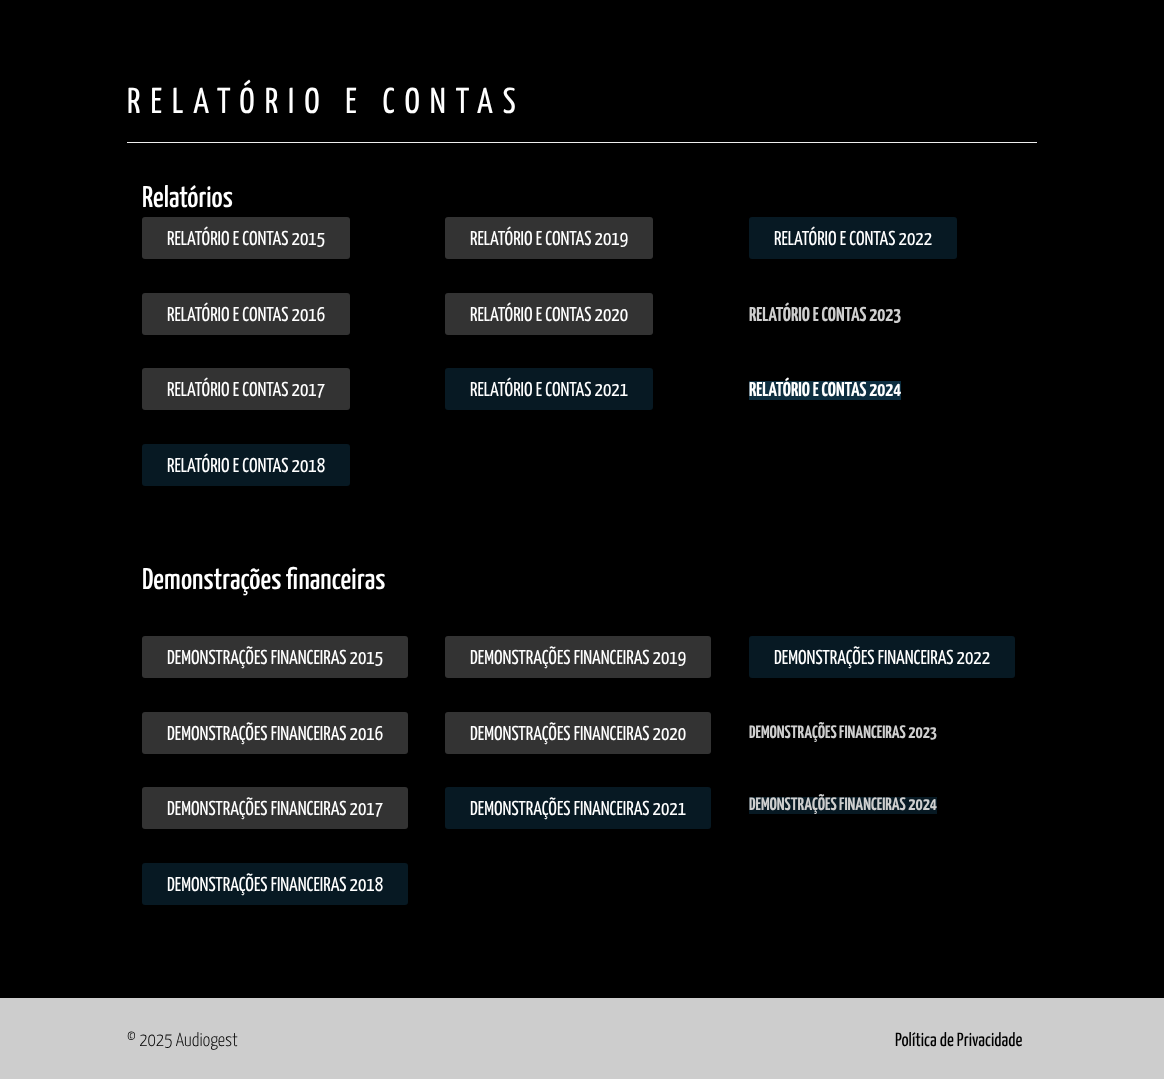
<svg xmlns="http://www.w3.org/2000/svg" width="1164" height="1079">
<style>
.a{font:36px Yanone Kaffeesatz;letter-spacing:10px;fill:#fff}
.b{font:500 30px Yanone Kaffeesatz;fill:#fff}
.c{font:20px Yanone Kaffeesatz;fill:#fff}
.d{font:bold 20px Yanone Kaffeesatz;fill:#cfcfcf}
.e{font:bold 20px Yanone Kaffeesatz;fill:#fff}
.f{font:bold 18px Yanone Kaffeesatz;fill:#cfcfcf}
.g{font:300 19px Yanone Kaffeesatz;fill:#000}
.h{font:19px Yanone Kaffeesatz;fill:#000}
</style>
<rect width="100%" height="100%" fill="#000"/>
<path fill="#eee" d="M127 142h910v1H127z"/>
<rect fill="#333" x="142" y="217" width="208" height="42" rx="3"/>
<rect fill="#333" x="142" y="293" width="208" height="42" rx="3"/>
<rect fill="#333" x="142" y="368" width="208" height="42" rx="3"/>
<rect fill="#071923" x="142" y="444" width="208" height="42" rx="3"/>
<rect fill="#333" x="445" y="217" width="208" height="42" rx="3"/>
<rect fill="#333" x="445" y="293" width="208" height="42" rx="3"/>
<rect fill="#071923" x="445" y="368" width="208" height="42" rx="3"/>
<rect fill="#071923" x="749" y="217" width="208" height="42" rx="3"/>
<path fill="#0d2e40" d="M749 381h152v19H749z"/>
<rect fill="#333" x="142" y="636" width="266" height="42" rx="3"/>
<rect fill="#333" x="142" y="712" width="266" height="42" rx="3"/>
<rect fill="#333" x="142" y="787" width="266" height="42" rx="3"/>
<rect fill="#071923" x="142" y="863" width="266" height="42" rx="3"/>
<rect fill="#333" x="445" y="636" width="266" height="42" rx="3"/>
<rect fill="#333" x="445" y="712" width="266" height="42" rx="3"/>
<rect fill="#071923" x="445" y="787" width="266" height="42" rx="3"/>
<rect fill="#071923" x="749" y="636" width="266" height="42" rx="3"/>
<path fill="#071923" d="M749 797h188v17H749z"/>
<path fill="#cdcdcd" d="M0 998h1164v81H0z"/>
<text class="a" x="127" y="113">RELATÓRIO E CONTAS</text>
<text class="b" x="142" y="207">Relatórios</text>
<text class="c" x="167" y="245">RELATÓRIO E CONTAS 2015</text>
<text class="c" x="167" y="321">RELATÓRIO E CONTAS 2016</text>
<text class="c" x="167" y="396">RELATÓRIO E CONTAS 2017</text>
<text class="c" x="167" y="472">RELATÓRIO E CONTAS 2018</text>
<text class="c" x="470" y="245">RELATÓRIO E CONTAS 2019</text>
<text class="c" x="470" y="321">RELATÓRIO E CONTAS 2020</text>
<text class="c" x="470" y="396">RELATÓRIO E CONTAS 2021</text>
<text class="c" x="774" y="245">RELATÓRIO E CONTAS 2022</text>
<text class="d" x="749" y="321">RELATÓRIO E CONTAS 2023</text>
<text class="e" x="749" y="396">RELATÓRIO E CONTAS 2024</text>
<text class="b" x="142" y="589">Demonstrações financeiras</text>
<text class="c" x="167" y="664">DEMONSTRAÇÕES FINANCEIRAS 2015</text>
<text class="c" x="167" y="740">DEMONSTRAÇÕES FINANCEIRAS 2016</text>
<text class="c" x="167" y="815">DEMONSTRAÇÕES FINANCEIRAS 2017</text>
<text class="c" x="167" y="891">DEMONSTRAÇÕES FINANCEIRAS 2018</text>
<text class="c" x="470" y="664">DEMONSTRAÇÕES FINANCEIRAS 2019</text>
<text class="c" x="470" y="740">DEMONSTRAÇÕES FINANCEIRAS 2020</text>
<text class="c" x="470" y="815">DEMONSTRAÇÕES FINANCEIRAS 2021</text>
<text class="c" x="774" y="664">DEMONSTRAÇÕES FINANCEIRAS 2022</text>
<text class="f" x="749" y="738">DEMONSTRAÇÕES FINANCEIRAS 2023</text>
<text class="f" x="749" y="810">DEMONSTRAÇÕES FINANCEIRAS 2024</text>
<text class="g" x="127" y="1046">© 2025 Audiogest</text>
<text class="h" x="895" y="1046">Política de Privacidade</text>
</svg>
